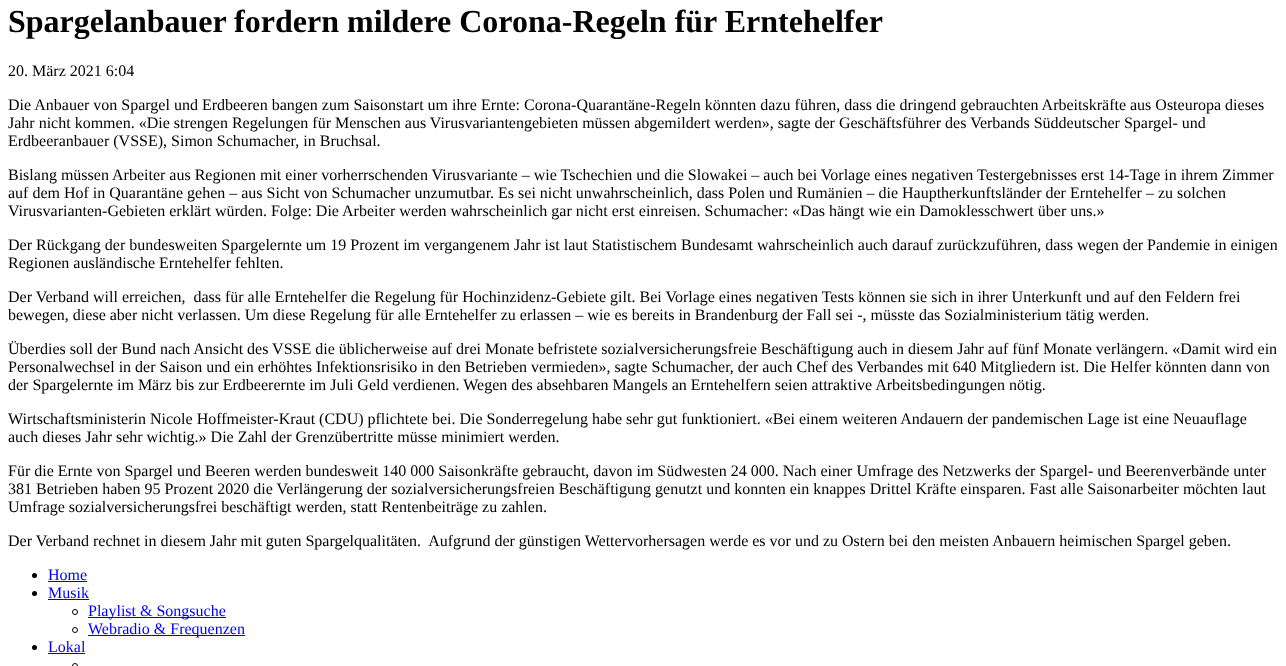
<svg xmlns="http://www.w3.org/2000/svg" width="1286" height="666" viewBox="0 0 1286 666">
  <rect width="100%" height="100%" fill="rgb(255,255,255)"/>
  <text x="8" y="32" font-family="Liberation Serif" font-size="32" font-weight="bold" fill="rgb(0,0,0)">Spargelanbauer fordern mildere Corona-Regeln für Erntehelfer</text>
  <g font-family="Liberation Serif" font-size="16" fill="rgb(0,0,0)">
    <text x="8" y="76">20. März 2021 6:04</text>
    <text>
      <tspan x="8" y="110">Die Anbauer von Spargel und Erdbeeren bangen zum Saisonstart um ihre Ernte: Corona-Quarantäne-Regeln könnten dazu führen, dass die dringend gebrauchten Arbeitskräfte aus Osteuropa dieses</tspan>
      <tspan x="8" y="128">Jahr nicht kommen. «Die strengen Regelungen für Menschen aus Virusvariantengebieten müssen abgemildert werden», sagte der Geschäftsführer des Verbands Süddeutscher Spargel- und</tspan>
      <tspan x="8" y="146">Erdbeeranbauer (VSSE), Simon Schumacher, in Bruchsal.</tspan>
    </text>
    <text>
      <tspan x="8" y="180">Bislang müssen Arbeiter aus Regionen mit einer vorherrschenden Virusvariante – wie Tschechien und die Slowakei – auch bei Vorlage eines negativen Testergebnisses erst 14-Tage in ihrem Zimmer</tspan>
      <tspan x="8" y="198">auf dem Hof in Quarantäne gehen – aus Sicht von Schumacher unzumutbar. Es sei nicht unwahrscheinlich, dass Polen und Rumänien – die Hauptherkunftsländer der Erntehelfer – zu solchen</tspan>
      <tspan x="8" y="216">Virusvarianten-Gebieten erklärt würden. Folge: Die Arbeiter werden wahrscheinlich gar nicht erst einreisen. Schumacher: «Das hängt wie ein Damoklesschwert über uns.»</tspan>
    </text>
    <text>
      <tspan x="8" y="250">Der Rückgang der bundesweiten Spargelernte um 19 Prozent im vergangenem Jahr ist laut Statistischem Bundesamt wahrscheinlich auch darauf zurückzuführen, dass wegen der Pandemie in einigen</tspan>
      <tspan x="8" y="268">Regionen ausländische Erntehelfer fehlten.</tspan>
    </text>
    <text xml:space="preserve"><tspan x="8" y="302">Der Verband will erreichen,  dass für alle Erntehelfer die Regelung für Hochinzidenz-Gebiete gilt. Bei Vorlage eines negativen Tests können sie sich in ihrer Unterkunft und auf den Feldern frei</tspan><tspan x="8" y="320">bewegen, diese aber nicht verlassen. Um diese Regelung für alle Erntehelfer zu erlassen – wie es bereits in Brandenburg der Fall sei -, müsste das Sozialministerium tätig werden.</tspan></text>
    <text>
      <tspan x="8" y="354">Überdies soll der Bund nach Ansicht des VSSE die üblicherweise auf drei Monate befristete sozialversicherungsfreie Beschäftigung auch in diesem Jahr auf fünf Monate verlängern. «Damit wird ein</tspan>
      <tspan x="8" y="372">Personalwechsel in der Saison und ein erhöhtes Infektionsrisiko in den Betrieben vermieden», sagte Schumacher, der auch Chef des Verbandes mit 640 Mitgliedern ist. Die Helfer könnten dann von</tspan>
      <tspan x="8" y="390">der Spargelernte im März bis zur Erdbeerernte im Juli Geld verdienen. Wegen des absehbaren Mangels an Erntehelfern seien attraktive Arbeitsbedingungen nötig.</tspan>
    </text>
    <text>
      <tspan x="8" y="424">Wirtschaftsministerin Nicole Hoffmeister-Kraut (CDU) pflichtete bei. Die Sonderregelung habe sehr gut funktioniert. «Bei einem weiteren Andauern der pandemischen Lage ist eine Neuauflage</tspan>
      <tspan x="8" y="442">auch dieses Jahr sehr wichtig.» Die Zahl der Grenzübertritte müsse minimiert werden.</tspan>
    </text>
    <text>
      <tspan x="8" y="476">Für die Ernte von Spargel und Beeren werden bundesweit 140 000 Saisonkräfte gebraucht, davon im Südwesten 24 000. Nach einer Umfrage des Netzwerks der Spargel- und Beerenverbände unter</tspan>
      <tspan x="8" y="494">381 Betrieben haben 95 Prozent 2020 die Verlängerung der sozialversicherungsfreien Beschäftigung genutzt und konnten ein knappes Drittel Kräfte einsparen. Fast alle Saisonarbeiter möchten laut</tspan>
      <tspan x="8" y="512">Umfrage sozialversicherungsfrei beschäftigt werden, statt Rentenbeiträge zu zahlen.</tspan>
    </text>
    <text x="8" y="546" xml:space="preserve">Der Verband rechnet in diesem Jahr mit guten Spargelqualitäten.  Aufgrund der günstigen Wettervorhersagen werde es vor und zu Ostern bei den meisten Anbauern heimischen Spargel geben.</text>
  </g>
  <circle cx="34.5" cy="575.5" r="2.5" fill="rgb(0,0,0)"/>
  <text x="48" y="580" font-family="Liberation Serif" font-size="16" fill="rgb(0,0,238)">Home</text>
  <rect x="48" y="581" width="39" height="1" fill="rgb(0,0,238)"/>
  <circle cx="34.5" cy="593.5" r="2.5" fill="rgb(0,0,0)"/>
  <text x="48" y="598" font-family="Liberation Serif" font-size="16" fill="rgb(0,0,238)">Musik</text>
  <rect x="48" y="599" width="41" height="1" fill="rgb(0,0,238)"/>
  <circle cx="75" cy="612" r="2.5" fill="none" stroke="rgb(0,0,0)"/>
  <rect x="88" y="617" width="138" height="1" fill="rgb(0,0,238)"/>
  <text x="88" y="616" font-family="Liberation Serif" font-size="16" fill="rgb(0,0,238)">Playlist &amp; Songsuche</text>
  <circle cx="75" cy="630" r="2.5" fill="none" stroke="rgb(0,0,0)"/>
  <rect x="88" y="635" width="157" height="1" fill="rgb(0,0,238)"/>
  <text x="88" y="634" font-family="Liberation Serif" font-size="16" fill="rgb(0,0,238)">Webradio &amp; Frequenzen</text>
  <circle cx="34.5" cy="647.5" r="2.5" fill="rgb(0,0,0)"/>
  <text x="48" y="652" font-family="Liberation Serif" font-size="16" fill="rgb(0,0,238)">Lokal</text>
  <rect x="48" y="653" width="37" height="1" fill="rgb(0,0,238)"/>
  <circle cx="75" cy="666" r="2.5" fill="none" stroke="rgb(0,0,0)"/>
</svg>
